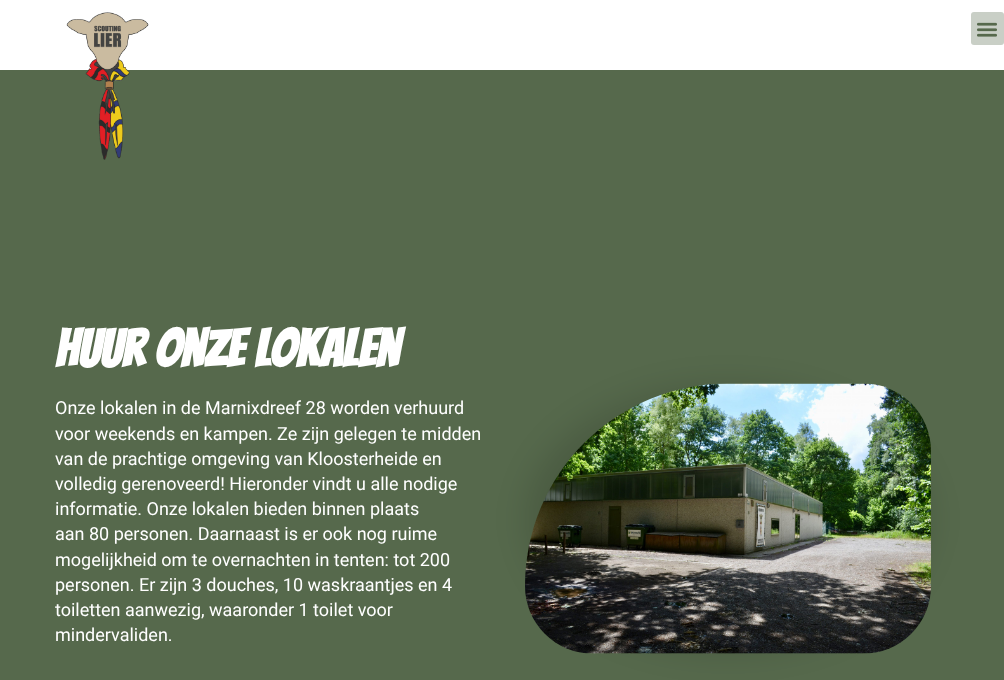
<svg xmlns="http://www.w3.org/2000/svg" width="1004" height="680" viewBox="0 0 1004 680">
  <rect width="100%" height="100%" fill="rgb(255,255,255)"/>
  <rect x="0" y="70" width="1004" height="610" fill="rgb(86,105,76)"/>
  <image x="66" y="12" width="83" height="148" href="pic1.png"/>
  <rect x="971" y="12" width="33" height="33" rx="3" fill="rgb(201,207,198)"/>
  <image x="977" y="22" width="20" height="15" href="pic2.png"/>
  <text x="55" y="367" font-family="Bangers" font-size="52" font-weight="bold" fill="rgb(255,255,255)">huur onze lokalen</text>
  <g font-family="Roboto" font-size="18" fill="rgb(255,255,255)">
    <text>
      <tspan x="55" y="414">Onze lokalen in de Marnixdreef 28 worden verhuurd</tspan>
      <tspan x="55" y="440">voor weekends en kampen. Ze zijn gelegen te midden</tspan>
      <tspan x="55" y="465">van de prachtige omgeving van Kloosterheide en</tspan>
      <tspan x="55" y="490">volledig gerenoveerd! Hieronder vindt u alle nodige</tspan>
      <tspan x="55" y="515">informatie. Onze lokalen bieden binnen plaats</tspan>
      <tspan x="55" y="540">aan 80 personen. Daarnaast is er ook nog ruime</tspan>
      <tspan x="55" y="566">mogelijkheid om te overnachten in tenten: tot 200</tspan>
      <tspan x="55" y="591">personen. Er zijn 3 douches, 10 waskraantjes en 4</tspan>
      <tspan x="55" y="616">toiletten aanwezig, waaronder 1 toilet voor</tspan>
      <tspan x="55" y="641">mindervaliden.</tspan>
    </text>
  </g>
  <rect x="525" y="384" width="406" height="270" rx="202" fill="rgba(0,0,0,0.12)" filter="blur(15px)"/>
  <image x="525" y="383" width="406" height="271" href="pic3.png"/>
</svg>
